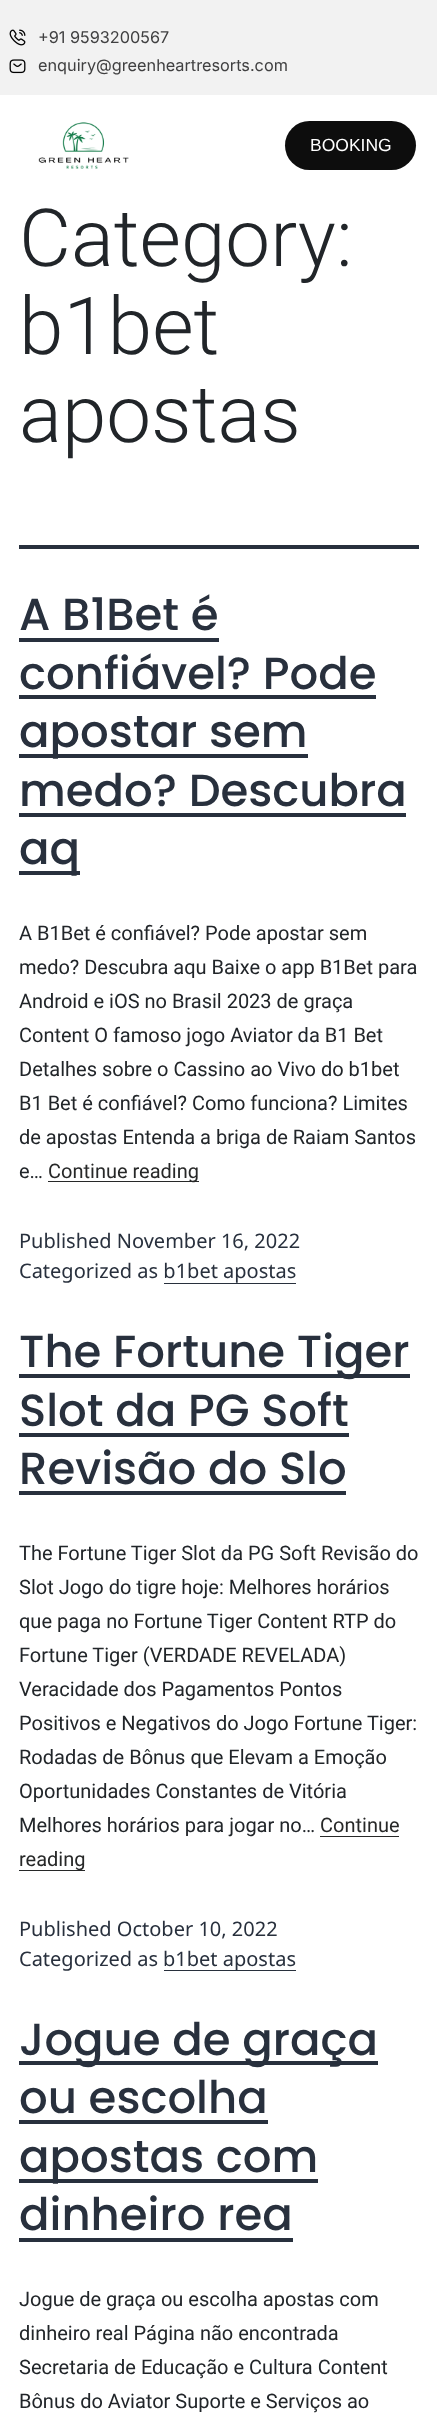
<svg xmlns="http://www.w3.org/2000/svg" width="437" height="2419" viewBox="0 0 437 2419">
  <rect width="100%" height="100%" fill="rgb(255,255,255)"/>
  <rect x="0" y="0" width="437" height="95" fill="rgb(242,242,242)"/>
  <image x="9" y="29" width="17" height="17" href="pic1.png"/>
  <text x="38" y="43" font-family="Inter" font-size="16.25" fill="rgb(64,64,65)">+91 9593200567</text>
  <image x="9" y="59" width="17" height="15" href="pic2.png"/>
  <text x="38" y="71" font-family="Inter" font-size="16.25" fill="rgb(64,64,65)">enquiry@greenheartresorts.com</text>
  <image x="38" y="122" width="91" height="47" href="pic3.png"/>
  <rect x="285" y="121" width="131" height="49" rx="24.5" fill="rgb(13,13,13)"/>
  <text x="310" y="151" font-family="Liberation Sans" font-size="17.5" fill="rgb(255,255,255)">BOOKING</text>
  <rect x="19" y="545" width="400" height="4" fill="rgb(40,48,61)"/>
  <g font-family="Roboto" font-size="80" font-weight="300" fill="rgb(33,37,41)">
    <text>
      <tspan x="19" y="266">Category:</tspan>
      <tspan x="19" y="354">b1bet</tspan>
      <tspan x="19" y="442">apostas</tspan>
    </text>
  </g>
  <text x="19" y="630" font-family="Poppins" font-size="45" font-weight="500" fill="rgb(40,48,61)">A B1Bet é</text>
  <rect x="19" y="638" width="200" height="4" fill="rgb(40,48,61)"/>
  <text x="19" y="689" font-family="Poppins" font-size="45" font-weight="500" fill="rgb(40,48,61)">confiável? Pode</text>
  <rect x="19" y="695" width="357" height="4" fill="rgb(40,48,61)"/>
  <rect x="19" y="754" width="289" height="4" fill="rgb(40,48,61)"/>
  <g font-family="Poppins" font-size="45" font-weight="500" fill="rgb(40,48,61)">
    <text>
      <tspan x="19" y="747">apostar sem</tspan>
      <tspan x="19" y="806">medo? Descubra</tspan>
    </text>
  </g>
  <rect x="19" y="813" width="387" height="4" fill="rgb(40,48,61)"/>
  <rect x="19" y="871" width="61" height="4" fill="rgb(40,48,61)"/>
  <text x="19" y="864" font-family="Poppins" font-size="45" font-weight="500" fill="rgb(40,48,61)">aq</text>
  <g font-family="Roboto" font-size="20" fill="rgb(33,37,41)">
    <text>
      <tspan x="19" y="940">A B1Bet é confiável? Pode apostar sem</tspan>
      <tspan x="19" y="974">medo? Descubra aqu Baixe o app B1Bet para</tspan>
      <tspan x="19" y="1008">Android e iOS no Brasil 2023 de graça</tspan>
      <tspan x="19" y="1042">Content O famoso jogo Aviator da B1 Bet</tspan>
      <tspan x="19" y="1076">Detalhes sobre o Cassino ao Vivo do b1bet</tspan>
      <tspan x="19" y="1110">B1 Bet é confiável? Como funciona? Limites</tspan>
      <tspan x="19" y="1144">de apostas Entenda a briga de Raiam Santos</tspan>
      <tspan x="19" y="1178">e…</tspan>
    </text>
  </g>
  <rect x="48" y="1181" width="151" height="1" fill="rgb(39,40,40)"/>
  <text x="48" y="1178" font-family="Roboto" font-size="20" fill="rgb(39,40,40)">Continue reading</text>
  <g font-family="Noto Sans" font-size="20" fill="rgb(40,48,61)">
    <text>
      <tspan x="19" y="1248">Published November 16, 2022</tspan>
      <tspan x="19" y="1278">Categorized as b1bet apostas</tspan>
    </text>
  </g>
  <rect x="164" y="1283" width="132" height="1" fill="rgb(40,48,61)"/>
  <rect x="19" y="1374" width="391" height="4" fill="rgb(40,48,61)"/>
  <g font-family="Poppins" font-size="45" font-weight="500" fill="rgb(40,48,61)">
    <text>
      <tspan x="19" y="1367">The Fortune Tiger</tspan>
      <tspan x="19" y="1426">Slot da PG Soft</tspan>
    </text>
  </g>
  <rect x="19" y="1433" width="330" height="4" fill="rgb(40,48,61)"/>
  <text x="19" y="1484" font-family="Poppins" font-size="45" font-weight="500" fill="rgb(40,48,61)">Revisão do Slo</text>
  <rect x="19" y="1491" width="327" height="4" fill="rgb(40,48,61)"/>
  <g font-family="Roboto" font-size="20" fill="rgb(33,37,41)">
    <text>
      <tspan x="19" y="1560">The Fortune Tiger Slot da PG Soft Revisão do</tspan>
      <tspan x="19" y="1594">Slot Jogo do tigre hoje: Melhores horários</tspan>
      <tspan x="19" y="1628">que paga no Fortune Tiger Content RTP do</tspan>
      <tspan x="19" y="1662">Fortune Tiger (VERDADE REVELADA)</tspan>
      <tspan x="19" y="1696">Veracidade dos Pagamentos Pontos</tspan>
      <tspan x="19" y="1730">Positivos e Negativos do Jogo Fortune Tiger:</tspan>
      <tspan x="19" y="1764">Rodadas de Bônus que Elevam a Emoção</tspan>
      <tspan x="19" y="1798">Oportunidades Constantes de Vitória</tspan>
      <tspan x="19" y="1832">Melhores horários para jogar no…</tspan>
    </text>
  </g>
  <text x="320" y="1832" font-family="Roboto" font-size="20" fill="rgb(39,40,40)">Continue</text>
  <rect x="320" y="1836" width="79" height="1" fill="rgb(39,40,40)"/>
  <rect x="19" y="1870" width="66" height="1" fill="rgb(39,40,40)"/>
  <text x="19" y="1866" font-family="Roboto" font-size="20" fill="rgb(39,40,40)">reading</text>
  <g font-family="Noto Sans" font-size="20" fill="rgb(40,48,61)">
    <text>
      <tspan x="19" y="1936">Published October 10, 2022</tspan>
      <tspan x="19" y="1966">Categorized as</tspan>
    </text>
  </g>
  <rect x="164" y="1970" width="132" height="1" fill="rgb(40,48,61)"/>
  <text x="163" y="1966" font-family="Noto Sans" font-size="20" fill="rgb(40,48,61)">b1bet apostas</text>
  <rect x="19" y="2061" width="359" height="4" fill="rgb(40,48,61)"/>
  <g font-family="Poppins" font-size="45" font-weight="500" fill="rgb(40,48,61)">
    <text>
      <tspan x="19" y="2055">Jogue de graça</tspan>
      <tspan x="19" y="2113">ou escolha</tspan>
    </text>
  </g>
  <rect x="19" y="2120" width="249" height="4" fill="rgb(40,48,61)"/>
  <rect x="19" y="2179" width="299" height="4" fill="rgb(40,48,61)"/>
  <g font-family="Poppins" font-size="45" font-weight="500" fill="rgb(40,48,61)">
    <text>
      <tspan x="19" y="2172">apostas com</tspan>
      <tspan x="19" y="2230">dinheiro rea</tspan>
    </text>
  </g>
  <rect x="19" y="2238" width="274" height="4" fill="rgb(40,48,61)"/>
  <g font-family="Roboto" font-size="20" fill="rgb(33,37,41)">
    <text>
      <tspan x="19" y="2306">Jogue de graça ou escolha apostas com</tspan>
      <tspan x="19" y="2340">dinheiro real Página não encontrada</tspan>
      <tspan x="19" y="2374">Secretaria de Educação e Cultura Content</tspan>
      <tspan x="19" y="2408">Bônus do Aviator Suporte e Serviços ao</tspan>
    </text>
  </g>
</svg>
